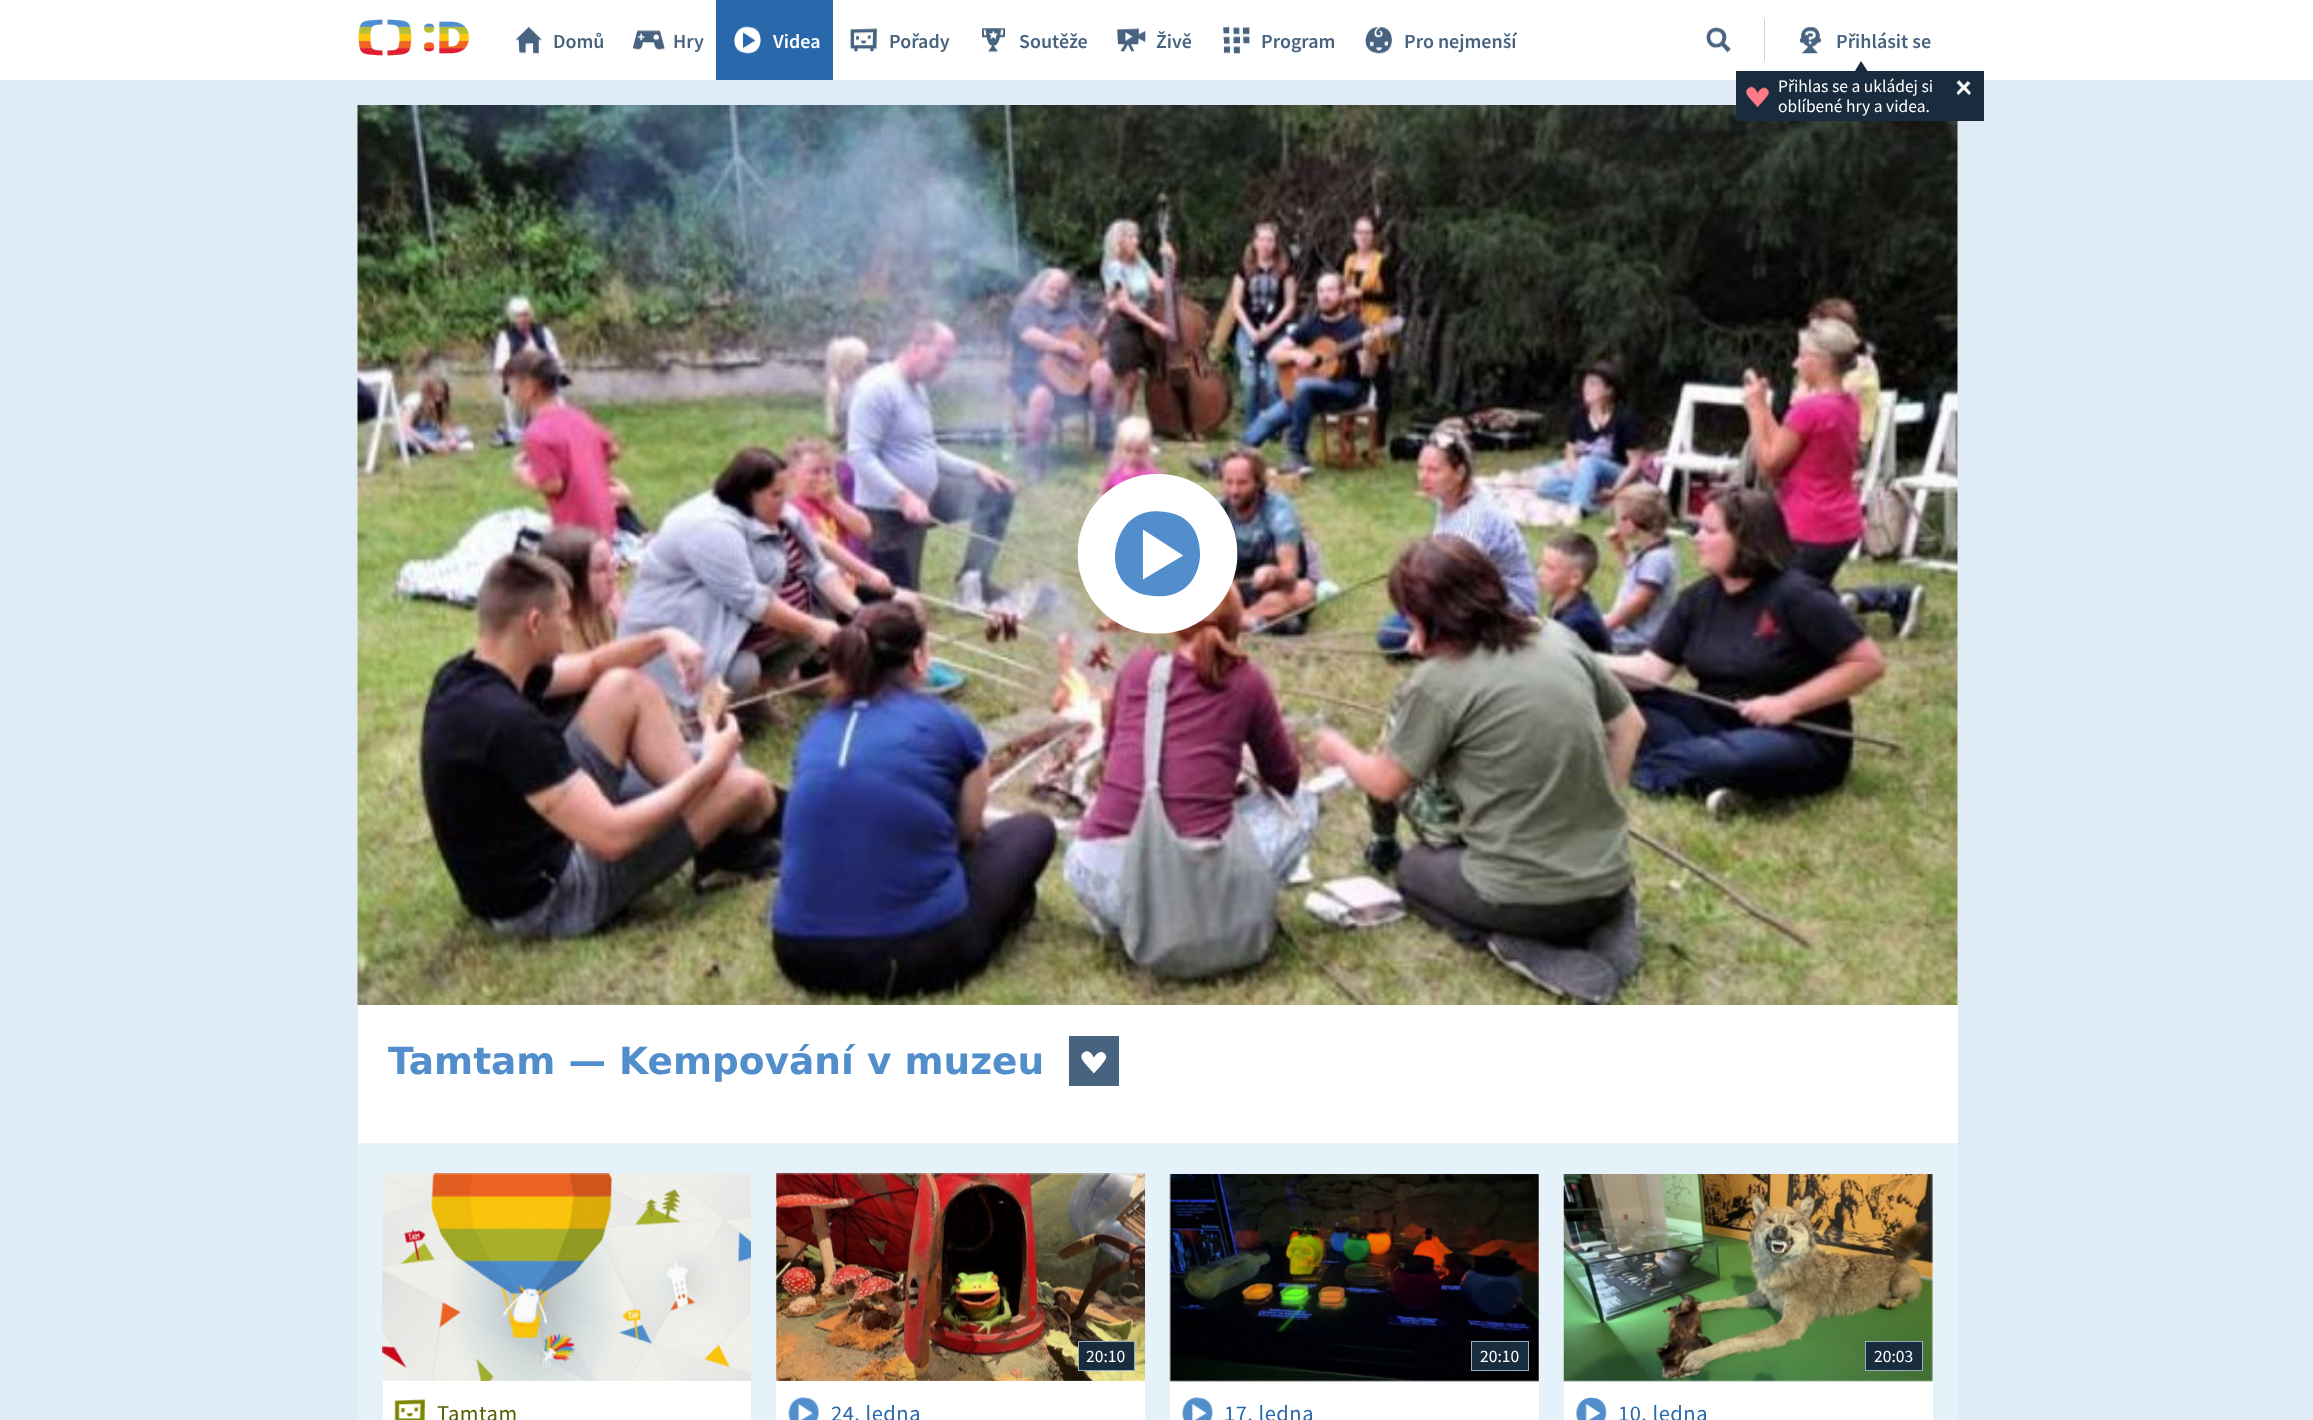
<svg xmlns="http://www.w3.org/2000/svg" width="2313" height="1420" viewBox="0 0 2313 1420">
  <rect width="100%" height="100%" fill="rgb(224,236,245)"/>
  <rect x="0" y="0" width="2313" height="80" fill="rgb(255,255,255)"/>
  <image x="358" y="19" width="111" height="37" href="pic1.png"/>
  <image x="515" y="26" width="27" height="28" href="pic2.png"/>
  <text x="553" y="48" font-family="Source Sans Pro" font-size="20" font-weight="600" fill="rgb(72,99,128)">Domů</text>
  <image x="632" y="30" width="33" height="21" href="pic3.png"/>
  <text x="673" y="48" font-family="Source Sans Pro" font-size="20" font-weight="600" fill="rgb(72,99,128)">Hry</text>
  <rect x="716" y="0" width="117" height="80" fill="rgb(41,105,171)"/>
  <image x="734" y="26" width="27" height="28" href="pic4.png"/>
  <text x="773" y="48" font-family="Source Sans Pro" font-size="20" font-weight="600" fill="rgb(255,255,255)">Videa</text>
  <image x="850" y="28" width="27" height="24" href="pic5.png"/>
  <text x="889" y="48" font-family="Source Sans Pro" font-size="20" font-weight="600" fill="rgb(72,99,128)">Pořady</text>
  <image x="982" y="28" width="23" height="25" href="pic6.png"/>
  <text x="1019" y="48" font-family="Source Sans Pro" font-size="20" font-weight="600" fill="rgb(72,99,128)">Soutěže</text>
  <image x="1117" y="28" width="29" height="24" href="pic7.png"/>
  <text x="1156" y="48" font-family="Source Sans Pro" font-size="20" font-weight="600" fill="rgb(72,99,128)">Živě</text>
  <image x="1223" y="26" width="27" height="28" href="pic8.png"/>
  <text x="1261" y="48" font-family="Source Sans Pro" font-size="20" font-weight="600" fill="rgb(72,99,128)">Program</text>
  <image x="1365" y="26" width="27" height="28" href="pic9.png"/>
  <text x="1404" y="48" font-family="Source Sans Pro" font-size="20" font-weight="600" fill="rgb(72,99,128)">Pro nejmenší</text>
  <image x="1706" y="27" width="25" height="26" href="pic10.png"/>
  <rect x="1764" y="19" width="1" height="42" fill="rgb(195,215,230)"/>
  <image x="1799" y="26" width="23" height="28" href="pic11.png"/>
  <text x="1836" y="48" font-family="Source Sans Pro" font-size="20" font-weight="600" fill="rgb(72,99,128)">Přihlásit se</text>
  <image x="357" y="105" width="1601" height="900" href="pic14.png"/>
  <rect x="1736" y="71" width="248" height="50" fill="rgb(25,44,61)"/>
  <path d="M1867.5 71H1855L1861 61Z" fill="rgb(25,44,61)"/>
  <image x="1746" y="86" width="23" height="22" href="pic12.png"/>
  <g font-family="Source Sans Pro" font-size="17.5" fill="rgb(255,255,255)">
    <text>
      <tspan x="1778" y="92">Přihlas se a ukládej si</tspan>
      <tspan x="1778" y="112">oblíbené hry a videa.</tspan>
    </text>
  </g>
  <image x="1956" y="80" width="15" height="16" href="pic13.png"/>
  <image x="1077" y="473" width="161" height="161" href="pic15.png"/>
  <rect x="358" y="1005" width="1600" height="138" fill="rgb(255,255,255)"/>
  <text x="388" y="1074" font-family="DejaVu Sans" font-size="37.5" font-weight="bold" fill="rgb(81,142,203)">Tamtam — Kempování v muzeu</text>
  <rect x="1069" y="1036" width="50" height="50" fill="rgb(72,99,128)"/>
  <image x="1081" y="1051" width="26" height="23" href="pic16.png"/>
  <rect x="358" y="1143" width="1600" height="277" fill="rgb(230,242,250)"/>
  <image x="382" y="1173" width="369" height="208" href="pic17.png"/>
  <rect x="383" y="1381" width="368" height="39" fill="rgb(255,255,255)"/>
  <image x="394" y="1399" width="32" height="21" href="pic18.png"/>
  <text x="437" y="1421" font-family="Source Sans Pro" font-size="22.5" letter-spacing="0.5" fill="rgb(87,93,0)">Tamtam</text>
  <rect x="776" y="1174" width="369" height="246" fill="rgb(255,255,255)"/>
  <image x="776" y="1173" width="369" height="208" href="pic19.png"/>
  <rect x="1078.5" y="1341.5" width="56" height="29" fill="rgb(25,44,61)" stroke="rgb(145,176,196)"/>
  <text x="1086" y="1362" font-family="Source Sans Pro" font-size="17.5" fill="rgb(255,255,255)">20:10</text>
  <image x="788" y="1397" width="32" height="23" href="pic20.png"/>
  <text x="831" y="1421" font-family="Source Sans Pro" font-size="22.5" letter-spacing="0.5" fill="rgb(41,105,171)">24. ledna</text>
  <rect x="1170" y="1174" width="369" height="246" fill="rgb(255,255,255)"/>
  <image x="1169" y="1174" width="370" height="208" href="pic21.png"/>
  <rect x="1471.5" y="1341.5" width="57" height="29" fill="rgb(25,44,61)" stroke="rgb(145,176,196)"/>
  <text x="1480" y="1362" font-family="Source Sans Pro" font-size="17.5" fill="rgb(255,255,255)">20:10</text>
  <image x="1182" y="1397" width="31" height="23" href="pic22.png"/>
  <text x="1224" y="1421" font-family="Source Sans Pro" font-size="22.5" letter-spacing="0.5" fill="rgb(41,105,171)">17. ledna</text>
  <rect x="1564" y="1174" width="369" height="246" fill="rgb(255,255,255)"/>
  <image x="1563" y="1174" width="370" height="208" href="pic23.png"/>
  <rect x="1865.5" y="1341.5" width="57" height="29" fill="rgb(25,44,61)" stroke="rgb(145,176,196)"/>
  <text x="1874" y="1362" font-family="Source Sans Pro" font-size="17.5" fill="rgb(255,255,255)">20:03</text>
  <image x="1576" y="1397" width="31" height="23" href="pic24.png"/>
  <text x="1618" y="1421" font-family="Source Sans Pro" font-size="22.5" letter-spacing="0.5" fill="rgb(41,105,171)">10. ledna</text>
</svg>
